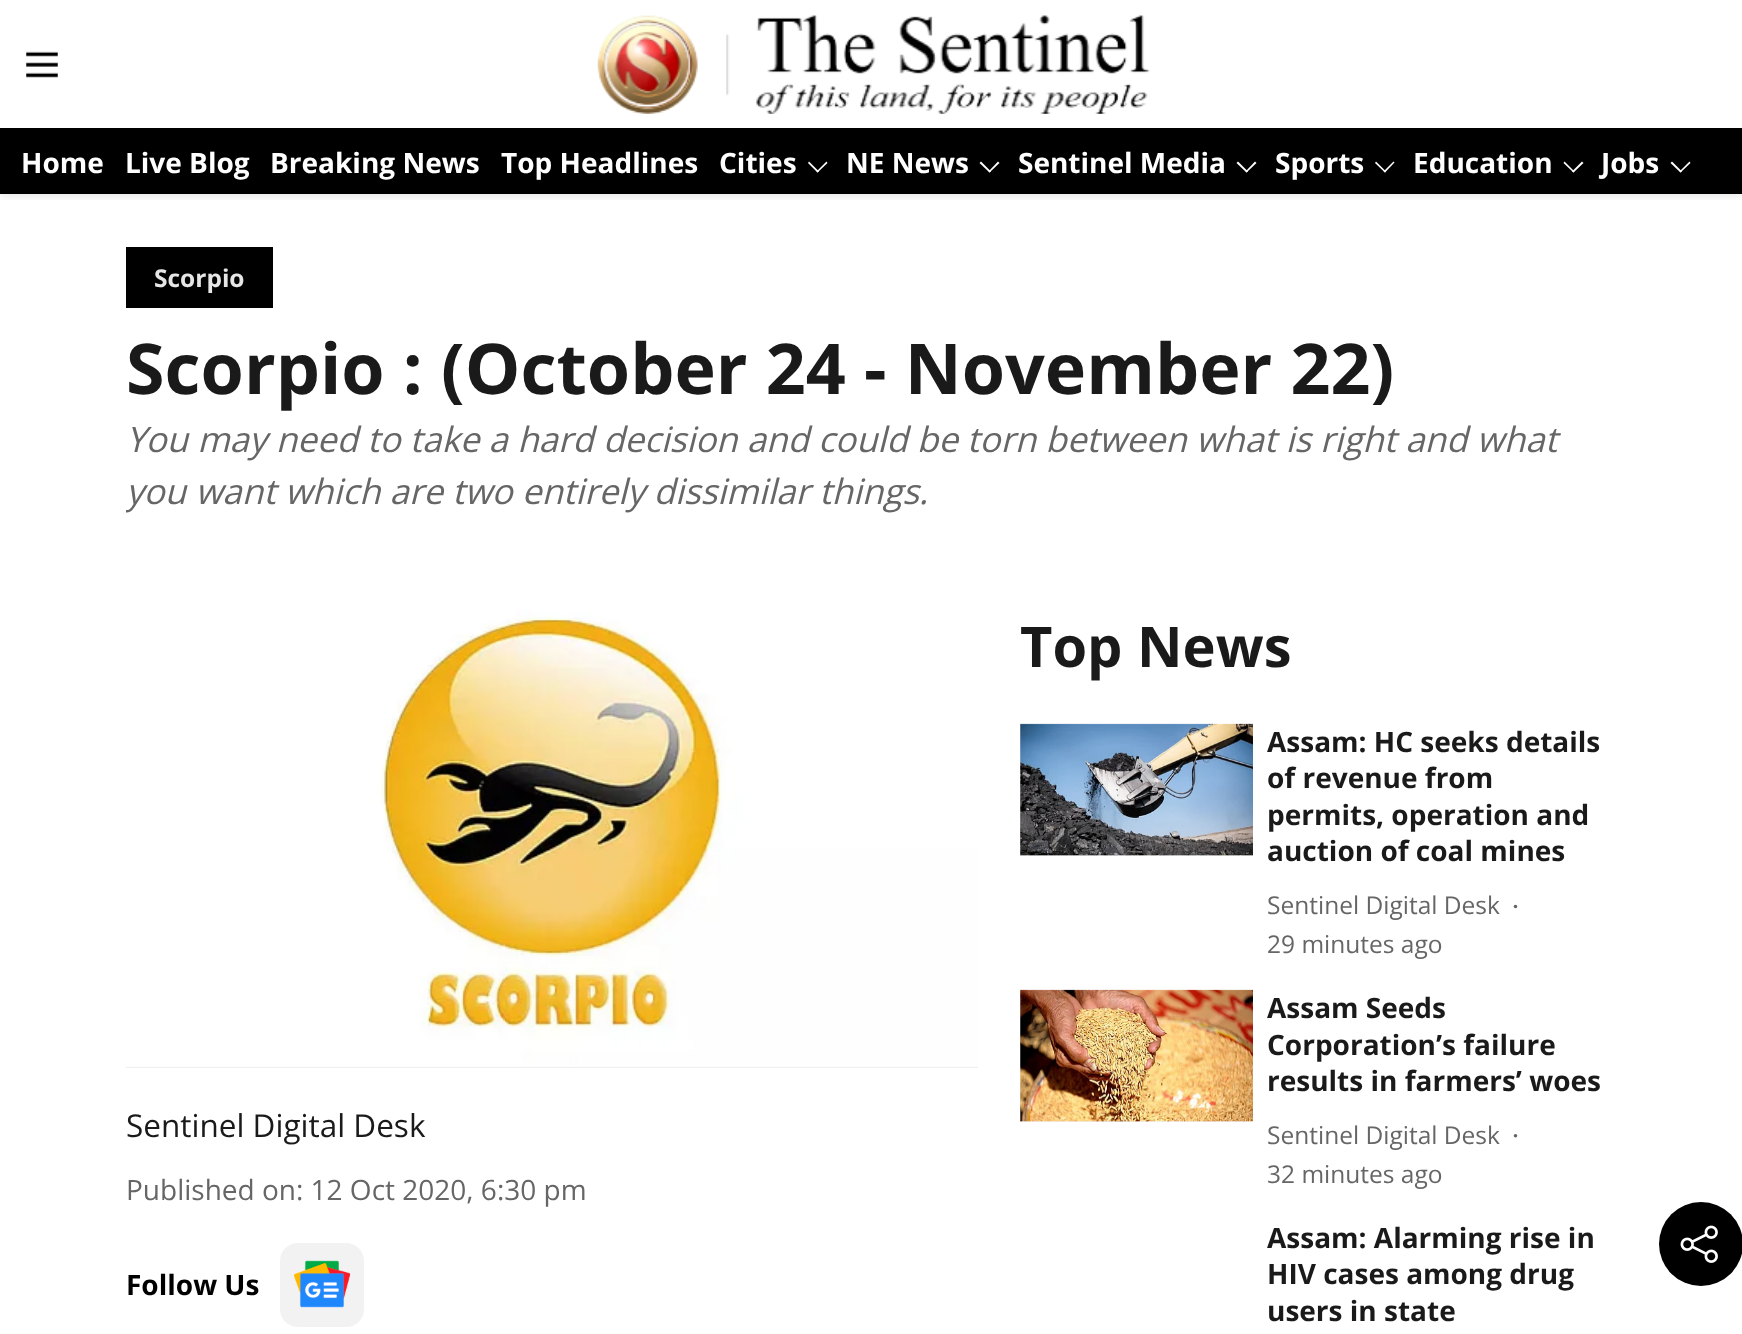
<svg xmlns="http://www.w3.org/2000/svg" width="1742" height="1334" viewBox="0 0 1742 1334">
  <defs>
    <clipPath id="clip1"><rect x="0" y="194" width="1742" height="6"/></clipPath>
    <clipPath id="clip2"><rect x="126" y="413" width="1491" height="105"/></clipPath>
  </defs>
  <rect width="100%" height="100%" fill="rgb(255,255,255)"/>
  <g clip-path="url(#clip1)">
    <rect x="0" y="2" width="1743" height="194" fill="rgba(0,0,0,0.1)" filter="blur(5px)"/>
  </g>
  <image x="26" y="51" width="32" height="27" href="pic1.png"/>
  <image x="597" y="15" width="553" height="99" href="pic2.png"/>
  <rect x="0" y="128" width="1742" height="66" fill="rgb(0,0,0)"/>
  <g font-family="Open Sans" font-size="28" font-weight="bold" fill="rgb(255,255,255)">
    <text x="21" y="173">Home</text>
    <text x="125" y="173">Live Blog</text>
    <text x="270" y="173">Breaking News</text>
    <text x="501" y="173">Top Headlines</text>
    <text x="719" y="173">Cities</text>
  </g>
  <path d="M826.5 161.5L827.5 163L817.5 172.5L816.5 171.5Z" fill="rgb(255,255,255)"/>
  <path d="M809 161.5L819 171.5L817.5 172.5L808 163Z" fill="rgb(255,255,255)"/>
  <text x="846" y="173" font-family="Open Sans" font-size="28" font-weight="bold" fill="rgb(255,255,255)">NE News</text>
  <path d="M998 161.5L999.5 163L989.5 172.5L988.5 171.5Z" fill="rgb(255,255,255)"/>
  <path d="M981 161.5L991 171.5L989.5 172.5L979.5 163Z" fill="rgb(255,255,255)"/>
  <text x="1018" y="173" font-family="Open Sans" font-size="28" font-weight="bold" fill="rgb(255,255,255)">Sentinel Media</text>
  <path d="M1255 161.5L1256.5 163L1246.5 172.5L1245.5 171.5Z" fill="rgb(255,255,255)"/>
  <path d="M1238 161.5L1248 171.5L1246.5 172.5L1236.5 163Z" fill="rgb(255,255,255)"/>
  <text x="1275" y="173" font-family="Open Sans" font-size="28" font-weight="bold" fill="rgb(255,255,255)">Sports</text>
  <path d="M1393.5 161.5L1394.5 162.5L1385 172.5L1383.5 171.5Z" fill="rgb(255,255,255)"/>
  <path d="M1376 161.5L1386 171.5L1385 172.5L1375 163Z" fill="rgb(255,255,255)"/>
  <text x="1413" y="173" font-family="Open Sans" font-size="28" font-weight="bold" fill="rgb(255,255,255)">Education</text>
  <path d="M1582 161.5L1583.5 163L1573.5 172.5L1572 171.5Z" fill="rgb(255,255,255)"/>
  <path d="M1564.5 161.5L1574.5 171.5L1573.5 172.5L1563.5 163Z" fill="rgb(255,255,255)"/>
  <text x="1601" y="173" font-family="Open Sans" font-size="28" font-weight="bold" fill="rgb(255,255,255)">Jobs</text>
  <path d="M1689.5 161.5L1690.5 163L1680.5 172.5L1679.5 171.5Z" fill="rgb(255,255,255)"/>
  <path d="M1672 161.5L1682 171.5L1680.5 172.5L1670.5 163Z" fill="rgb(255,255,255)"/>
  <rect x="126" y="247" width="147" height="61" fill="rgb(0,0,0)"/>
  <text x="154" y="287" font-family="Open Sans" font-size="24.5" font-weight="bold" fill="rgb(230,230,230)">Scorpio</text>
  <text x="126" y="394" font-family="Open Sans" font-size="70" font-weight="bold" fill="rgb(26,26,26)">Scorpio : (October 24 - November 22)</text>
  <text x="126" y="452" font-family="Open Sans" font-size="35" font-style="italic" fill="rgb(102,102,102)">You may need to take a hard decision and could be torn between what is right and what</text>
  <g clip-path="url(#clip2)">
    <text x="126" y="504" font-family="Open Sans" font-size="35" font-style="italic" fill="rgb(102,102,102)">you want which are two entirely dissimilar things.</text>
  </g>
  <rect x="126" y="588" width="852" height="480" fill="rgb(240,240,240)"/>
  <image x="126" y="588" width="852" height="479" href="pic3.png"/>
  <text x="1020" y="667" font-family="Open Sans" font-size="56" font-weight="bold" fill="rgb(26,26,26)">Top News</text>
  <rect x="1020" y="725" width="233" height="131" fill="rgb(240,240,240)"/>
  <image x="1020" y="723" width="233" height="133" href="pic4.png"/>
  <g font-family="Open Sans" font-size="28" font-weight="bold" fill="rgb(26,26,26)">
    <text>
      <tspan x="1267" y="752">Assam: HC seeks details</tspan>
      <tspan x="1267" y="788">of revenue from</tspan>
      <tspan x="1267" y="825">permits, operation and</tspan>
      <tspan x="1267" y="861">auction of coal mines</tspan>
    </text>
  </g>
  <text x="1267" y="914" font-family="Open Sans" font-size="24.5" fill="rgb(102,102,102)">Sentinel Digital Desk</text>
  <circle cx="1515.5" cy="906.5" r="1.8" fill="rgb(102,102,102)"/>
  <text x="1267" y="953" font-family="Open Sans" font-size="24.5" fill="rgb(102,102,102)">29 minutes ago</text>
  <rect x="1020" y="991" width="233" height="131" fill="rgb(240,240,240)"/>
  <image x="1020" y="989" width="233" height="133" href="pic5.png"/>
  <g font-family="Open Sans" font-size="28" font-weight="bold" fill="rgb(26,26,26)">
    <text>
      <tspan x="1267" y="1018">Assam Seeds</tspan>
      <tspan x="1267" y="1055">Corporation’s failure</tspan>
      <tspan x="1267" y="1091">results in farmers’ woes</tspan>
    </text>
  </g>
  <text x="1267" y="1144" font-family="Open Sans" font-size="24.5" fill="rgb(102,102,102)">Sentinel Digital Desk</text>
  <circle cx="1515.5" cy="1135.8" r="1.8" fill="rgb(102,102,102)"/>
  <text x="1267" y="1183" font-family="Open Sans" font-size="24.5" fill="rgb(102,102,102)">32 minutes ago</text>
  <g font-family="Open Sans" font-size="28" font-weight="bold" fill="rgb(26,26,26)">
    <text>
      <tspan x="1267" y="1248">Assam: Alarming rise in</tspan>
      <tspan x="1267" y="1284">HIV cases among drug</tspan>
      <tspan x="1267" y="1321">users in state</tspan>
    </text>
  </g>
  <text x="126" y="1137" font-family="Open Sans" font-size="31.5" fill="rgb(26,26,26)">Sentinel Digital Desk</text>
  <text x="126" y="1200" font-family="Open Sans" font-size="28" fill="rgb(102,102,102)">Published on: 12 Oct 2020, 6:30 pm</text>
  <text x="126" y="1295" font-family="Open Sans" font-size="28" font-weight="bold" fill="rgb(0,0,0)">Follow Us</text>
  <rect x="280" y="1243" width="84" height="84" rx="18" fill="rgb(242,242,242)"/>
  <image x="294" y="1260" width="56" height="48" href="pic6.png"/>
  <circle cx="1701" cy="1244" r="42" fill="rgb(0,0,0)"/>
  <image x="1680" y="1225" width="38" height="38" href="pic7.png"/>
</svg>
